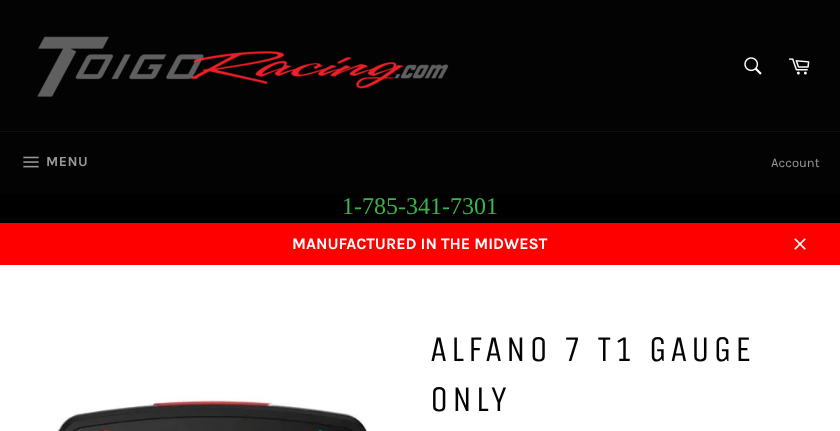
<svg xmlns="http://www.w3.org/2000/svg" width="840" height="431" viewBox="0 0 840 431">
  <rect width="100%" height="100%" fill="rgb(255,255,255)"/>
  <rect x="0" y="0" width="840" height="131" fill="rgb(3,3,3)"/>
  <image x="37" y="36" width="412" height="61" href="pic1.png"/>
  <image x="744" y="57" width="18" height="18" href="pic2.png"/>
  <image x="788" y="58" width="22" height="17" href="pic3.png"/>
  <rect x="0" y="132" width="840" height="62" fill="rgb(3,3,3)"/>
  <rect x="0" y="131" width="840" height="1" fill="rgb(16,16,16)"/>
  <image x="23" y="156" width="16" height="12" href="pic4.png"/>
  <text x="46" y="166" font-family="Karla" font-size="14" font-weight="bold" letter-spacing="0.5" fill="rgb(154,154,154)">MENU</text>
  <text x="771" y="167" font-family="Karla" font-size="13" fill="rgb(154,154,154)">Account</text>
  <rect x="0" y="194" width="840" height="29" fill="rgb(0,0,0)"/>
  <text x="342" y="214" font-family="Liberation Serif" font-size="24" fill="rgb(56,180,73)">1-785-341-7301</text>
  <rect x="0" y="223" width="840" height="42" fill="rgb(255,0,0)"/>
  <text x="292" y="249" font-family="Karla" font-size="16" font-weight="bold" fill="rgb(255,255,255)">MANUFACTURED IN THE MIDWEST</text>
  <image x="794" y="238" width="12" height="12" href="pic5.png"/>
  <image x="56" y="397" width="312" height="34" href="pic6.png"/>
  <g font-family="Unica One" font-size="36" letter-spacing="3.6" fill="rgb(3,3,3)">
    <text>
      <tspan x="430" y="361">ALFANO 7 T1 GAUGE</tspan>
      <tspan x="430" y="411">ONLY</tspan>
    </text>
  </g>
</svg>
